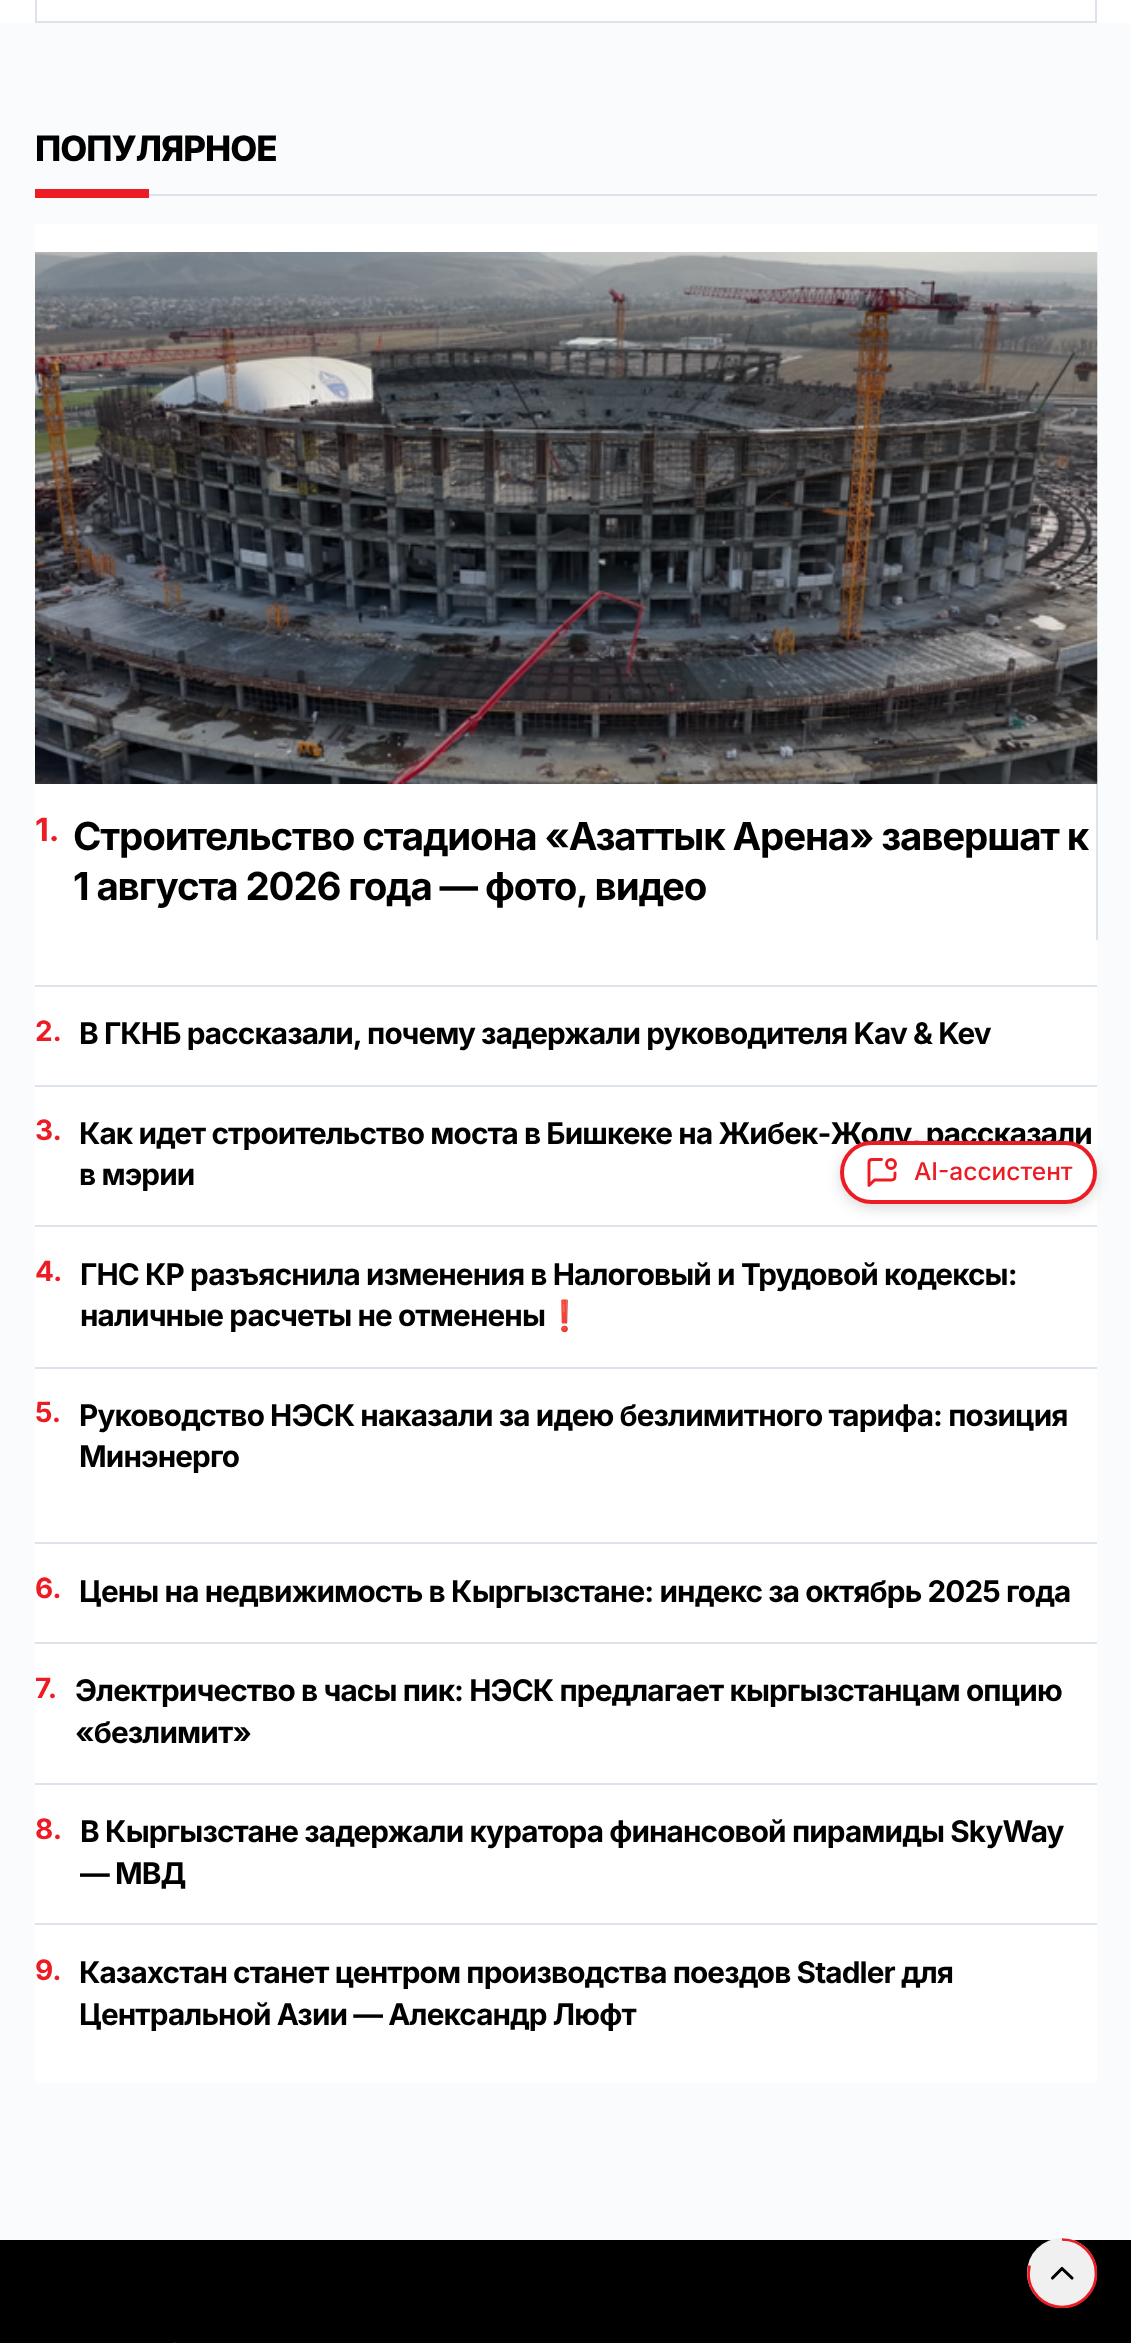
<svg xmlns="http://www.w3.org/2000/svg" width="1131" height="2343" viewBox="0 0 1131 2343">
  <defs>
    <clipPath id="clip1"><rect x="1027" y="2238" width="70" height="70"/></clipPath>
  </defs>
  <rect width="100%" height="100%" fill="rgb(255,255,255)"/>
  <rect x="36" y="-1" width="1060" height="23" fill="none" stroke="rgb(220,227,234)" stroke-width="2"/>
  <rect x="0" y="23" width="1131" height="2217" fill="rgb(249,251,252)"/>
  <rect x="149" y="194" width="948" height="2" fill="rgb(220,227,234)"/>
  <text x="35" y="161" font-family="Inter" font-size="35" font-weight="800" letter-spacing="-1" fill="rgb(0,0,0)">ПОПУЛЯРНОЕ</text>
  <rect x="35" y="189" width="114" height="9" fill="rgb(237,28,36)"/>
  <rect x="35" y="224" width="1062" height="1859" fill="rgb(255,255,255)"/>
  <image x="35" y="252" width="1063" height="532" href="pic1.png"/>
  <rect x="1096" y="784" width="2" height="156" fill="rgb(220,227,234)"/>
  <text x="35" y="841" font-family="Inter" font-size="32" font-weight="bold" fill="rgb(237,28,36)">1.</text>
  <g font-family="Inter" font-size="38.5" font-weight="bold" letter-spacing="-1.15" fill="rgb(0,0,0)">
    <text>
      <tspan x="73" y="850">Строительство стадиона «Азаттык Арена» завершат к</tspan>
      <tspan x="73" y="900">1 августа 2026 года — фото, видео</tspan>
    </text>
  </g>
  <rect x="35" y="985" width="1062" height="2" fill="rgb(220,227,234)"/>
  <rect x="35" y="1085" width="1062" height="2" fill="rgb(220,227,234)"/>
  <text x="35" y="1041" font-family="Inter" font-size="28" font-weight="bold" fill="rgb(237,28,36)">2.</text>
  <text x="79" y="1044" font-family="Inter" font-size="29.75" font-weight="bold" letter-spacing="-0.9" fill="rgb(0,0,0)">В ГКНБ рассказали, почему задержали руководителя Kav &amp; Kev</text>
  <rect x="35" y="1225" width="1062" height="2" fill="rgb(220,227,234)"/>
  <text x="35" y="1140" font-family="Inter" font-size="28" font-weight="bold" fill="rgb(237,28,36)">3.</text>
  <g font-family="Inter" font-size="29.75" font-weight="bold" letter-spacing="-0.9" fill="rgb(0,0,0)">
    <text>
      <tspan x="79" y="1144">Как идет строительство моста в Бишкеке на Жибек-Жолу, рассказали</tspan>
      <tspan x="79" y="1185">в мэрии</tspan>
    </text>
  </g>
  <rect x="35" y="1367" width="1062" height="2" fill="rgb(220,227,234)"/>
  <text x="35" y="1281" font-family="Inter" font-size="28" font-weight="bold" fill="rgb(237,28,36)">4.</text>
  <g font-family="Inter" font-size="29.75" font-weight="bold" letter-spacing="-0.9" fill="rgb(0,0,0)">
    <text>
      <tspan x="80" y="1285">ГНС КР разъяснила изменения в Налоговый и Трудовой кодексы:</tspan>
      <tspan x="80" y="1326">наличные расчеты не отменены</tspan>
    </text>
  </g>
  <text x="546" y="1326" font-family="Noto Color Emoji" font-size="29.75" font-weight="bold" letter-spacing="-0.9" fill="rgb(0,0,0)">❗️</text>
  <text x="35" y="1422" font-family="Inter" font-size="28" font-weight="bold" fill="rgb(237,28,36)">5.</text>
  <g font-family="Inter" font-size="29.75" font-weight="bold" letter-spacing="-0.9" fill="rgb(0,0,0)">
    <text>
      <tspan x="79" y="1426">Руководство НЭСК наказали за идею безлимитного тарифа: позиция</tspan>
      <tspan x="79" y="1467">Минэнерго</tspan>
    </text>
  </g>
  <rect x="35" y="1542" width="1062" height="2" fill="rgb(220,227,234)"/>
  <rect x="35" y="1642" width="1062" height="2" fill="rgb(220,227,234)"/>
  <text x="35" y="1598" font-family="Inter" font-size="28" font-weight="bold" fill="rgb(237,28,36)">6.</text>
  <text x="79" y="1602" font-family="Inter" font-size="29.75" font-weight="bold" letter-spacing="-0.9" fill="rgb(0,0,0)">Цены на недвижимость в Кыргызстане: индекс за октябрь 2025 года</text>
  <rect x="35" y="1783" width="1062" height="2" fill="rgb(220,227,234)"/>
  <text x="35" y="1698" font-family="Inter" font-size="28" font-weight="bold" fill="rgb(237,28,36)">7.</text>
  <g font-family="Inter" font-size="29.75" font-weight="bold" letter-spacing="-0.9" fill="rgb(0,0,0)">
    <text>
      <tspan x="75" y="1701">Электричество в часы пик: НЭСК предлагает кыргызстанцам опцию</tspan>
      <tspan x="75" y="1743">«безлимит»</tspan>
    </text>
  </g>
  <rect x="35" y="1923" width="1062" height="2" fill="rgb(220,227,234)"/>
  <text x="35" y="1839" font-family="Inter" font-size="28" font-weight="bold" fill="rgb(237,28,36)">8.</text>
  <g font-family="Inter" font-size="29.75" font-weight="bold" letter-spacing="-0.9" fill="rgb(0,0,0)">
    <text>
      <tspan x="80" y="1842">В Кыргызстане задержали куратора финансовой пирамиды SkyWay</tspan>
      <tspan x="80" y="1884">— МВД</tspan>
    </text>
  </g>
  <text x="35" y="1980" font-family="Inter" font-size="28" font-weight="bold" fill="rgb(237,28,36)">9.</text>
  <g font-family="Inter" font-size="29.75" font-weight="bold" letter-spacing="-0.9" fill="rgb(0,0,0)">
    <text>
      <tspan x="79" y="1983">Казахстан станет центром производства поездов Stadler для</tspan>
      <tspan x="79" y="2025">Центральной Азии — Александр Люфт</tspan>
    </text>
  </g>
  <rect x="0" y="2240" width="1131" height="103" fill="rgb(0,0,0)"/>
  <image x="174" y="2342" width="2" height="1" href="pic2.png"/>
  <rect x="840" y="1145" width="257" height="63" rx="31.5" fill="rgba(0,0,0,0.15)" filter="blur(7px)"/>
  <rect x="842" y="1143" width="253" height="59" rx="29.5" fill="rgb(255,255,255)" stroke="rgb(237,28,36)" stroke-width="4"/>
  <path d="M881.5 1159.5H872C870 1159.5 869 1160.5 869 1162.5V1185.5L874.5 1180H889.5C895.5 1180 895 1178.5 895 1173" fill="none" stroke="rgb(237,28,36)" stroke-width="2.9" stroke-linecap="round" stroke-linejoin="round"/>
  <circle cx="891" cy="1164" r="4.5" fill="none" stroke="rgb(237,28,36)" stroke-width="2.9"/>
  <text x="914" y="1180" font-family="Inter" font-size="24.5" font-weight="500" fill="rgb(237,28,36)">AI-ассистент</text>
  <circle cx="1062" cy="2273" r="35" fill="rgb(240,240,240)"/>
  <path d="M1052.5 2278L1062 2268.5L1072 2278" fill="none" stroke="rgb(0,0,0)" stroke-width="3.1" stroke-linecap="round" stroke-linejoin="round"/>
  <g clip-path="url(#clip1)">
    <path d="M1062 2239.5C1081 2239.5 1096 2254.5 1096 2273.5C1096 2292 1081 2307 1062 2307C1043.5 2307 1028.5 2292 1028.5 2273.5L1029.5 2265.5" fill="none" stroke="rgb(237,28,36)" stroke-width="2.7"/>
  </g>
</svg>
